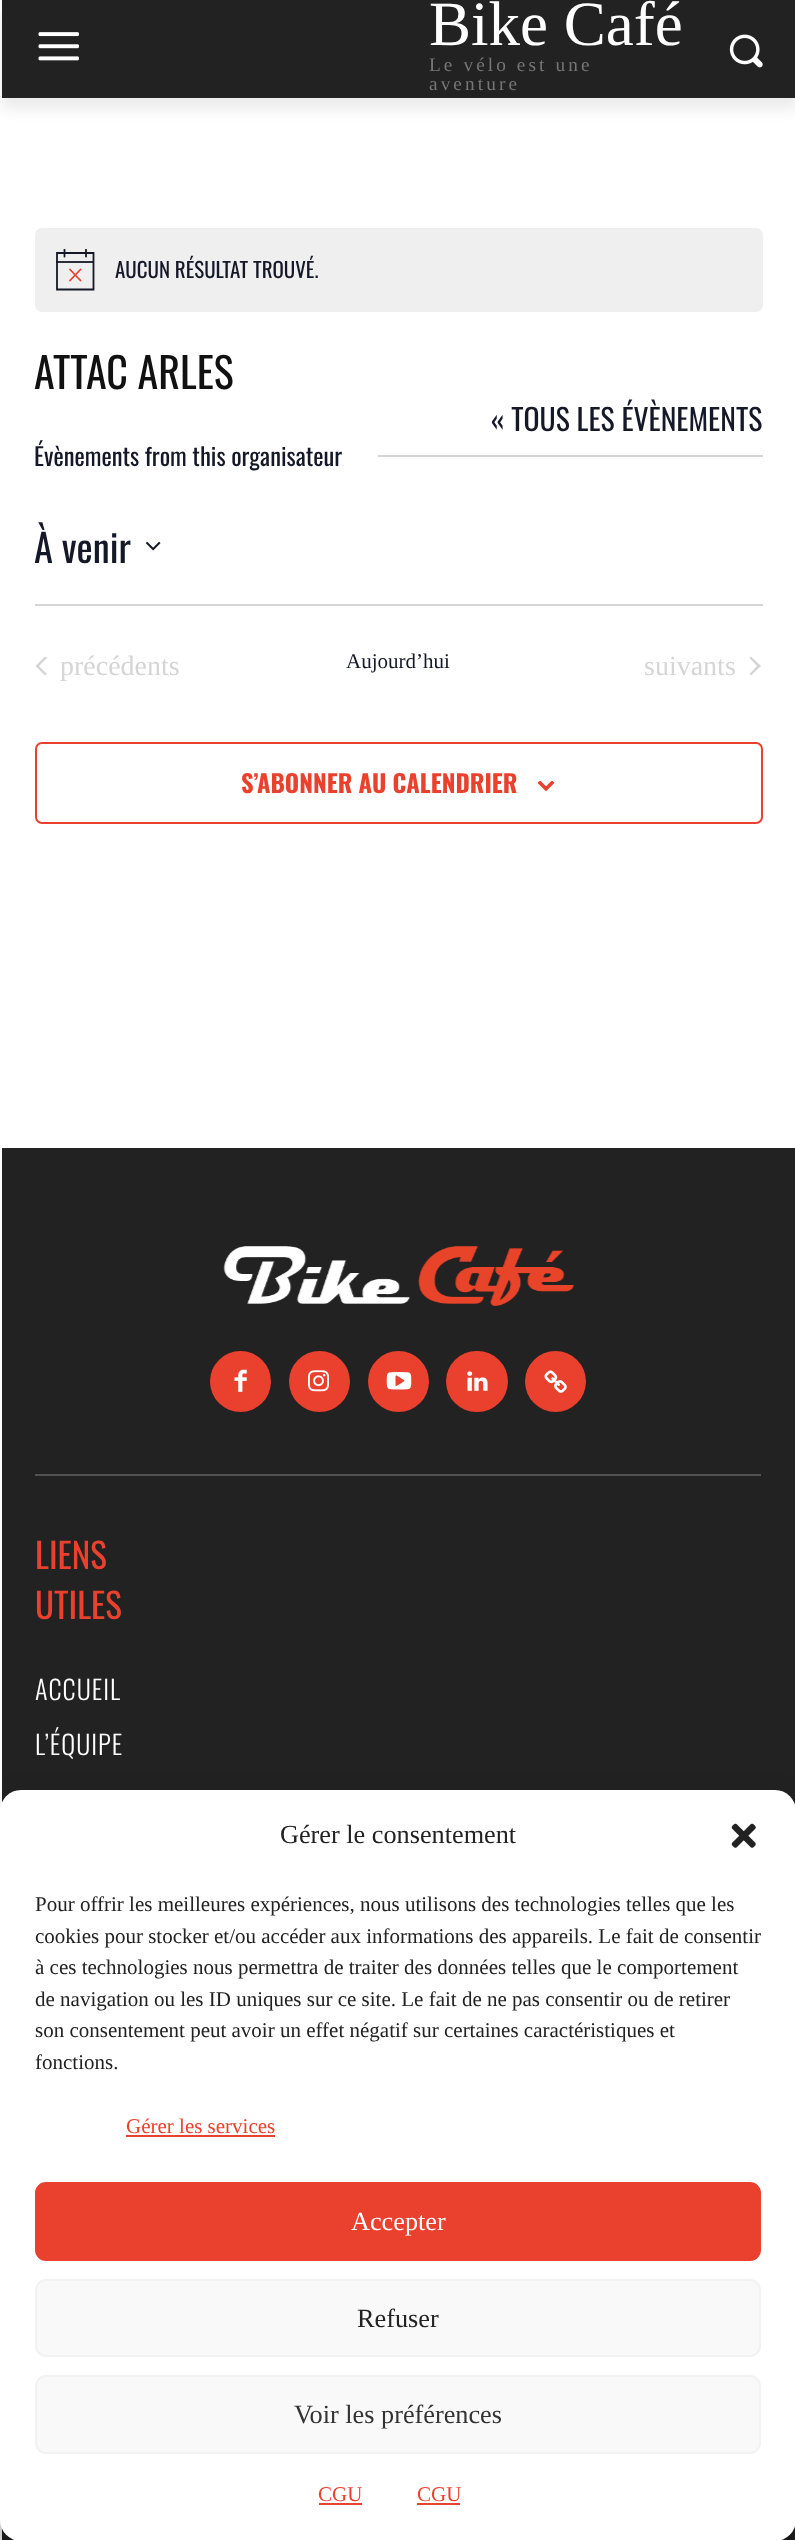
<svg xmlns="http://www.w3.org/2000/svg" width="795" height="2540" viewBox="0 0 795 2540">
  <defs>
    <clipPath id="clip1"><path d="M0 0H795V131H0ZM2 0H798V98H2Z" clip-rule="evenodd"/></clipPath>
    <clipPath id="clip2"><rect x="56" y="249" width="39" height="42"/></clipPath>
  </defs>
  <rect width="100%" height="100%" fill="rgb(255,255,255)"/>
  <rect x="2" y="0" width="793" height="98" fill="rgb(34,34,34)"/>
  <image x="38" y="32" width="41" height="29" href="pic1.png"/>
  <image x="729" y="34" width="34" height="34" href="pic2.png"/>
  <g clip-path="url(#clip1)">
    <rect x="2" y="11" width="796" height="98" fill="rgba(0,0,0,0.08)" filter="blur(7px)"/>
  </g>
  <text x="429" y="45" font-family="Liberation Serif" font-size="63" fill="rgb(255,255,255)">Bike Café</text>
  <g font-family="Liberation Serif" font-size="19.25" letter-spacing="3.1" fill="rgb(118,118,118)">
    <text>
      <tspan x="429" y="71">Le vélo est une</tspan>
      <tspan x="429" y="90">aventure</tspan>
    </text>
  </g>
  <rect x="35" y="228" width="728" height="84" rx="7" fill="rgb(239,239,240)"/>
  <path d="M57 253H93.5V289.5H57Z" fill="none" stroke="rgb(20,24,39)" stroke-width="1.8"/>
  <path d="M70 269.5L80.5 280.5M80.5 269.5L70 280.5" fill="none" stroke="rgb(234,65,46)" stroke-width="1.8" stroke-linecap="round"/>
  <g clip-path="url(#clip2)">
    <path d="M64.5 249.5V256.5M86 249.5V256.5" fill="none" stroke="rgb(20,24,39)" stroke-width="1.8" stroke-linecap="round"/>
  </g>
  <rect x="56" y="261" width="38" height="2" fill="rgba(20,24,39,0.9)"/>
  <text x="115" y="278" font-family="Oswald" font-size="21" fill="rgb(20,24,39)">AUCUN RÉSULTAT TROUVÉ.</text>
  <text x="34" y="389" font-family="Oswald" font-size="42" fill="rgb(17,17,17)">ATTAC ARLES</text>
  <text x="491" y="431" font-family="Oswald" font-size="29.75" fill="rgb(20,24,39)">« TOUS LES ÉVÈNEMENTS</text>
  <text x="34" y="466" font-family="Oswald" font-size="24.5" fill="rgb(20,24,39)">Évènements from this organisateur</text>
  <rect x="378" y="455" width="385" height="2" fill="rgb(213,213,213)"/>
  <text x="34" y="563" font-family="Oswald" font-size="38.5" fill="rgb(20,24,39)">À venir</text>
  <image x="145" y="541" width="16" height="10" href="pic3.png"/>
  <rect x="35" y="604" width="728" height="2" fill="rgb(213,213,213)"/>
  <path d="M47 674L45 675.5L35.5 666L45 656.5L47 658L39 666Z" fill="rgb(213,213,213)"/>
  <text x="60" y="675" font-family="Liberation Serif" font-size="28" fill="rgb(213,213,213)">précédents</text>
  <text x="346" y="668" font-family="Liberation Serif" font-size="21" fill="rgb(20,24,39)">Aujourd’hui</text>
  <text x="644" y="675" font-family="Liberation Serif" font-size="28" fill="rgb(213,213,213)">suivants</text>
  <path d="M749.5 658L751 656.5L761 666L751 675.5L749.5 674L757 666Z" fill="rgb(213,213,213)"/>
  <rect x="36" y="743" width="726" height="80" rx="6" fill="none" stroke="rgb(234,65,46)" stroke-width="2"/>
  <text x="241" y="793" font-family="Oswald" font-size="24.5" font-weight="bold" fill="rgb(234,65,46)">S’ABONNER AU CALENDRIER</text>
  <image x="537" y="781" width="18" height="10" href="pic4.png"/>
  <rect x="2" y="1148" width="793" height="1392" fill="rgb(34,34,34)"/>
  <rect x="35" y="1474" width="726" height="2" fill="rgb(81,81,81)"/>
  <image x="223" y="1246" width="352" height="60" href="pic5.png"/>
  <circle cx="240.5" cy="1381.5" r="30.5" fill="rgb(234,65,46)"/>
  <image x="234" y="1369" width="13" height="23" href="pic6.png"/>
  <circle cx="319.5" cy="1381.5" r="30.5" fill="rgb(234,65,46)"/>
  <image x="308" y="1370" width="21" height="22" href="pic7.png"/>
  <circle cx="398.5" cy="1381.5" r="30.5" fill="rgb(234,65,46)"/>
  <image x="386" y="1372" width="26" height="18" href="pic8.png"/>
  <rect x="446" y="1351" width="62" height="61" rx="30.5" fill="rgb(234,65,46)"/>
  <image x="467" y="1371" width="21" height="20" href="pic9.png"/>
  <circle cx="555.5" cy="1381.5" r="30.5" fill="rgb(234,65,46)"/>
  <image x="544" y="1370" width="23" height="23" href="pic10.png"/>
  <g font-family="Oswald" font-size="35" fill="rgb(234,65,46)">
    <text>
      <tspan x="35" y="1569">LIENS</tspan>
      <tspan x="35" y="1619">UTILES</tspan>
    </text>
  </g>
  <g font-family="Oswald" font-size="26.25" font-weight="300" letter-spacing="1" fill="rgb(255,255,255)">
    <text x="35" y="1700">ACCUEIL</text>
    <text x="35" y="1755">L’ÉQUIPE</text>
  </g>
  <rect x="0" y="1801" width="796" height="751" rx="21" fill="rgba(0,0,0,0.23)" filter="blur(5px)"/>
  <rect x="0" y="1808" width="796" height="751" rx="21" fill="rgba(0,0,0,0.19)" filter="blur(17.5px)"/>
  <rect x="0" y="1790" width="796" height="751" rx="21" fill="rgb(255,255,255)"/>
  <text x="280" y="1843" font-family="Liberation Serif" font-size="26.25" fill="rgb(34,34,34)">Gérer le consentement</text>
  <image x="731" y="1823" width="25" height="25" href="pic11.png"/>
  <g font-family="Liberation Serif" font-size="21" fill="rgb(34,34,34)">
    <text>
      <tspan x="35" y="1911">Pour offrir les meilleures expériences, nous utilisons des technologies telles que les</tspan>
      <tspan x="35" y="1943">cookies pour stocker et/ou accéder aux informations des appareils. Le fait de consentir</tspan>
      <tspan x="35" y="1974">à ces technologies nous permettra de traiter des données telles que le comportement</tspan>
      <tspan x="35" y="2006">de navigation ou les ID uniques sur ce site. Le fait de ne pas consentir ou de retirer</tspan>
      <tspan x="35" y="2037">son consentement peut avoir un effet négatif sur certaines caractéristiques et</tspan>
      <tspan x="35" y="2069">fonctions.</tspan>
    </text>
  </g>
  <text x="126" y="2133" font-family="Liberation Serif" font-size="21" fill="rgb(234,65,46)">Gérer les services</text>
  <rect x="126" y="2135" width="149" height="2" fill="rgb(234,65,46)"/>
  <rect x="36" y="2183" width="724" height="77" rx="10" fill="rgb(234,65,46)" stroke="rgb(234,65,46)" stroke-width="2"/>
  <text x="351" y="2230" font-family="Liberation Serif" font-size="26.25" fill="rgb(255,255,255)">Accepter</text>
  <rect x="36" y="2280" width="724" height="76" rx="10" fill="rgb(249,249,249)" stroke="rgb(242,242,242)" stroke-width="2"/>
  <text x="357" y="2327" font-family="Liberation Serif" font-size="26.25" fill="rgb(34,34,34)">Refuser</text>
  <rect x="36" y="2376" width="724" height="77" rx="10" fill="rgb(249,249,249)" stroke="rgb(242,242,242)" stroke-width="2"/>
  <text x="294" y="2423" font-family="Liberation Serif" font-size="26.25" fill="rgb(51,51,51)">Voir les préférences</text>
  <text x="318" y="2501" font-family="Liberation Serif" font-size="21" fill="rgb(234,65,46)">CGU</text>
  <rect x="319" y="2503" width="43" height="2" fill="rgb(234,65,46)"/>
  <text x="417" y="2501" font-family="Liberation Serif" font-size="21" fill="rgb(234,65,46)">CGU</text>
  <rect x="417" y="2503" width="43" height="2" fill="rgb(234,65,46)"/>
</svg>
